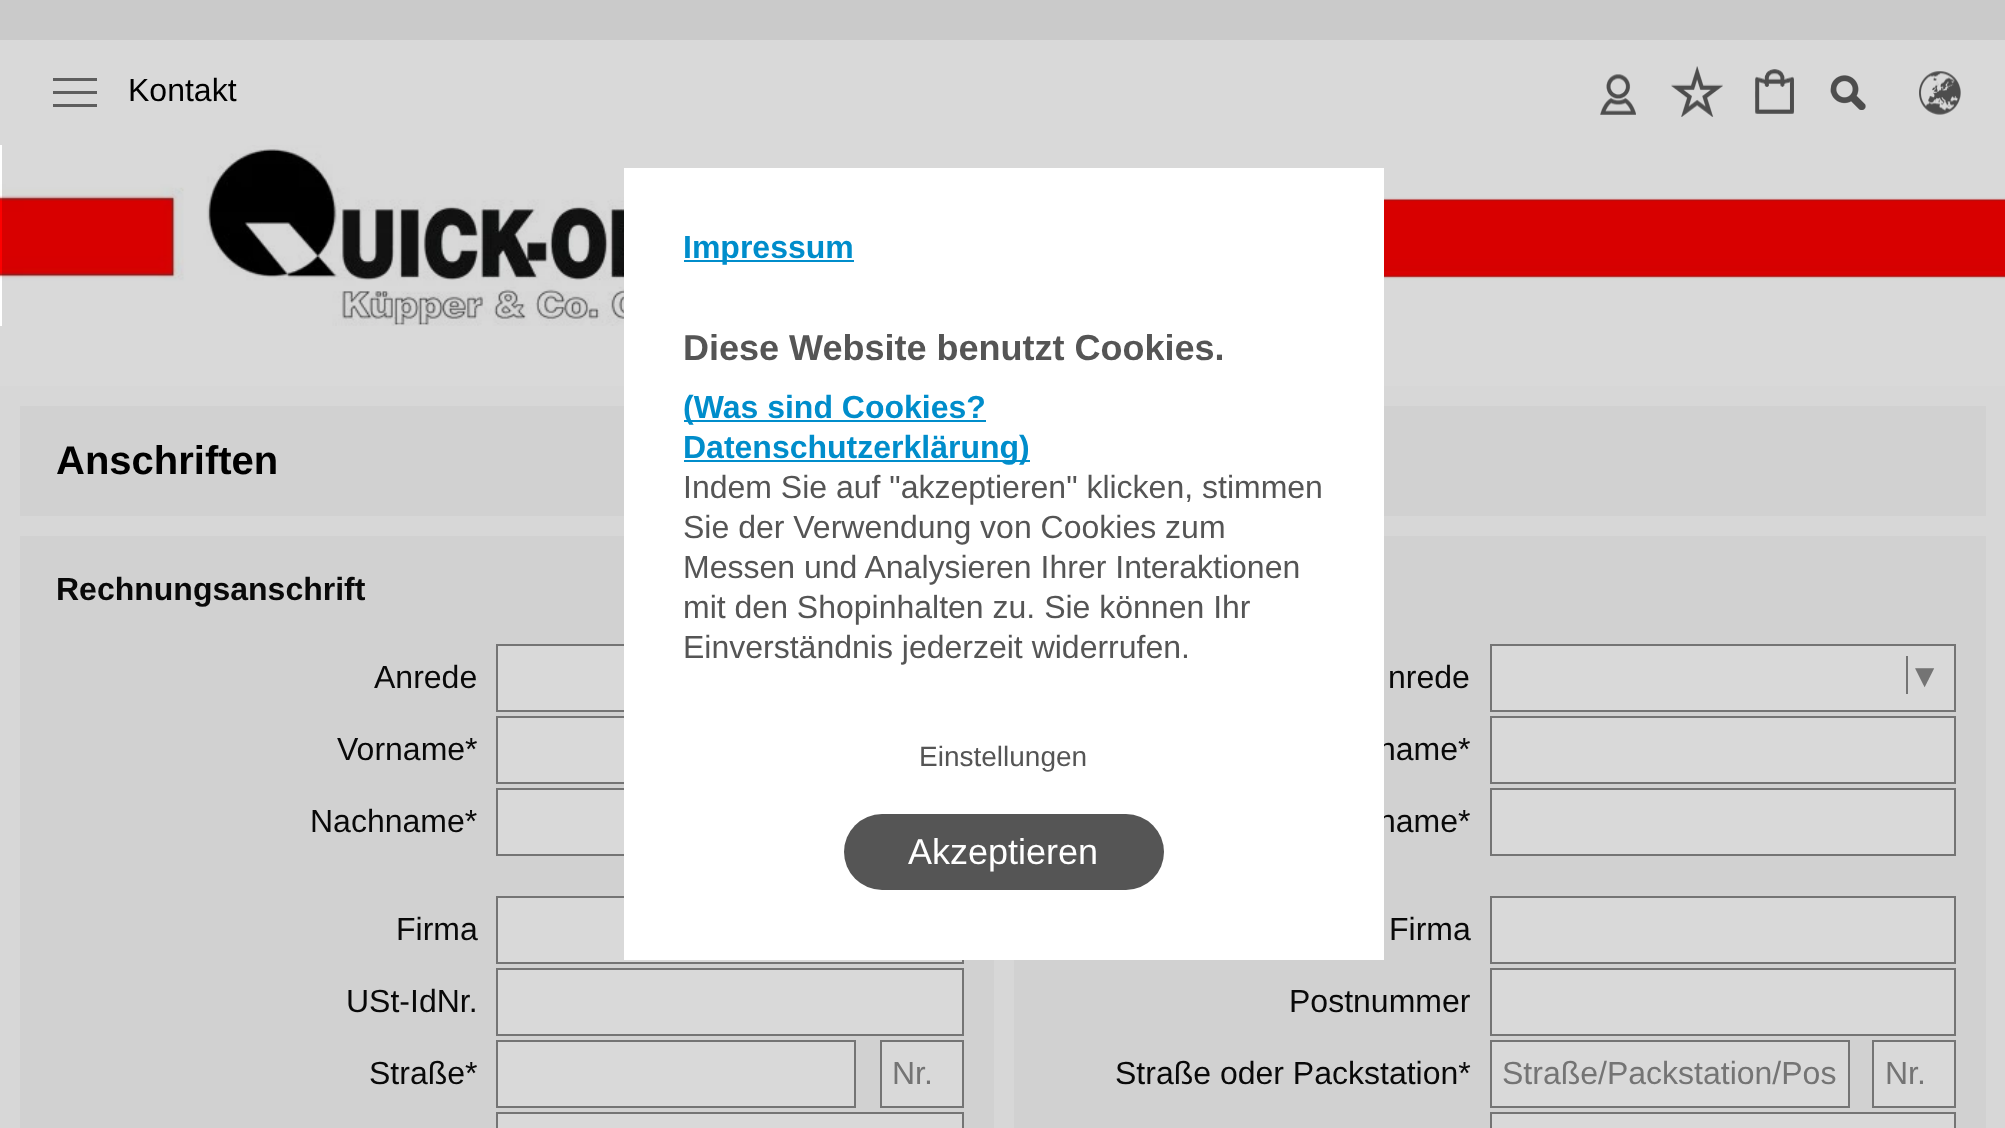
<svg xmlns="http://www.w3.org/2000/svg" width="2005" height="1128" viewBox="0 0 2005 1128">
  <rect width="100%" height="100%" fill="rgb(202,202,202)"/>
  <rect x="0" y="40" width="2005" height="346" fill="rgb(217,217,217)"/>
  <image x="0" y="145" width="2005" height="181" href="pic1.png"/>
  <image x="53" y="78" width="44" height="29" href="pic2.png"/>
  <text x="128" y="101" font-family="Liberation Sans" font-size="32" fill="rgb(0,0,0)">Kontakt</text>
  <image x="1600" y="74" width="36" height="41" href="pic3.png"/>
  <image x="1671" y="66" width="52" height="51" href="pic4.png"/>
  <image x="1755" y="69" width="39" height="45" href="pic5.png"/>
  <image x="1830" y="75" width="36" height="35" href="pic6.png"/>
  <image x="1919" y="71" width="42" height="44" href="pic7.png"/>
  <rect x="0" y="386" width="2005" height="742" fill="rgb(215,215,215)"/>
  <rect x="20" y="406" width="1966" height="110" fill="rgb(209,209,209)"/>
  <text x="56" y="474" font-family="Liberation Sans" font-size="40" font-weight="bold" fill="rgb(0,0,0)">Anschriften</text>
  <rect x="20" y="536" width="974" height="592" fill="rgb(209,209,209)"/>
  <text x="56" y="600" font-family="Liberation Sans" font-size="32" font-weight="bold" fill="rgb(9,9,9)">Rechnungsanschrift</text>
  <text x="374" y="688" font-family="Liberation Sans" font-size="32" fill="rgb(9,9,9)">Anrede</text>
  <rect x="498" y="646" width="126" height="64" fill="rgb(217,217,217)"/>
  <rect x="497" y="645" width="466" height="66" fill="none" stroke="rgb(116,116,116)" stroke-width="2"/>
  <text x="337" y="760" font-family="Liberation Sans" font-size="32" fill="rgb(9,9,9)">Vorname*</text>
  <rect x="498" y="718" width="126" height="64" fill="rgb(217,217,217)"/>
  <rect x="497" y="717" width="466" height="66" fill="none" stroke="rgb(116,116,116)" stroke-width="2"/>
  <text x="310" y="832" font-family="Liberation Sans" font-size="32" fill="rgb(9,9,9)">Nachname*</text>
  <rect x="498" y="790" width="126" height="64" fill="rgb(217,217,217)"/>
  <rect x="497" y="789" width="466" height="66" fill="none" stroke="rgb(116,116,116)" stroke-width="2"/>
  <text x="396" y="940" font-family="Liberation Sans" font-size="32" fill="rgb(9,9,9)">Firma</text>
  <rect x="497" y="897" width="466" height="66" fill="rgb(217,217,217)" stroke="rgb(116,116,116)" stroke-width="2"/>
  <text x="346" y="1012" font-family="Liberation Sans" font-size="32" fill="rgb(9,9,9)">USt-IdNr.</text>
  <rect x="497" y="969" width="466" height="66" fill="rgb(217,217,217)" stroke="rgb(116,116,116)" stroke-width="2"/>
  <text x="369" y="1084" font-family="Liberation Sans" font-size="32" fill="rgb(9,9,9)">Straße*</text>
  <rect x="497" y="1041" width="358" height="66" fill="rgb(217,217,217)" stroke="rgb(116,116,116)" stroke-width="2"/>
  <rect x="881" y="1041" width="82" height="66" fill="rgb(217,217,217)" stroke="rgb(116,116,116)" stroke-width="2"/>
  <text x="892" y="1084" font-family="Liberation Sans" font-size="32" fill="rgb(116,116,116)">Nr.</text>
  <rect x="497" y="1113" width="466" height="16" fill="rgb(217,217,217)" stroke="rgb(116,116,116)" stroke-width="2"/>
  <rect x="1014" y="536" width="972" height="592" fill="rgb(209,209,209)"/>
  <text x="1388" y="688" font-family="Liberation Sans" font-size="32" fill="rgb(9,9,9)">nrede</text>
  <rect x="1492" y="646" width="422" height="64" fill="rgb(217,217,217)"/>
  <rect x="1491" y="645" width="464" height="66" fill="none" stroke="rgb(116,116,116)" stroke-width="2"/>
  <rect x="1914" y="646" width="40" height="64" fill="rgb(217,217,217)"/>
  <rect x="1906" y="656" width="2" height="38" fill="rgb(116,116,116)"/>
  <text x="1915" y="686" font-family="DejaVu Sans Mono" font-size="32" fill="rgb(116,116,116)">▼</text>
  <text x="1378" y="760" font-family="Liberation Sans" font-size="32" fill="rgb(9,9,9)">name*</text>
  <rect x="1491" y="717" width="464" height="66" fill="rgb(217,217,217)" stroke="rgb(116,116,116)" stroke-width="2"/>
  <text x="1378" y="832" font-family="Liberation Sans" font-size="32" fill="rgb(9,9,9)">name*</text>
  <rect x="1491" y="789" width="464" height="66" fill="rgb(217,217,217)" stroke="rgb(116,116,116)" stroke-width="2"/>
  <text x="1389" y="940" font-family="Liberation Sans" font-size="32" fill="rgb(9,9,9)">Firma</text>
  <rect x="1491" y="897" width="464" height="66" fill="rgb(217,217,217)" stroke="rgb(116,116,116)" stroke-width="2"/>
  <text x="1289" y="1012" font-family="Liberation Sans" font-size="32" fill="rgb(9,9,9)">Postnummer</text>
  <rect x="1491" y="969" width="464" height="66" fill="rgb(217,217,217)" stroke="rgb(116,116,116)" stroke-width="2"/>
  <text x="1115" y="1084" font-family="Liberation Sans" font-size="32" fill="rgb(9,9,9)">Straße oder Packstation*</text>
  <rect x="1491" y="1041" width="358" height="66" fill="rgb(217,217,217)" stroke="rgb(116,116,116)" stroke-width="2"/>
  <text x="1502" y="1084" font-family="Liberation Sans" font-size="32" fill="rgb(116,116,116)">Straße/Packstation/Pos</text>
  <rect x="1873" y="1041" width="82" height="66" fill="rgb(217,217,217)" stroke="rgb(116,116,116)" stroke-width="2"/>
  <text x="1885" y="1084" font-family="Liberation Sans" font-size="32" fill="rgb(116,116,116)">Nr.</text>
  <rect x="1491" y="1113" width="464" height="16" fill="rgb(217,217,217)" stroke="rgb(116,116,116)" stroke-width="2"/>
  <rect x="624" y="168" width="760" height="792" fill="rgb(255,255,255)"/>
  <rect x="684" y="260" width="170" height="2" fill="rgb(0,141,203)"/>
  <text x="683" y="258" font-family="Liberation Sans" font-size="32" font-weight="bold" fill="rgb(0,141,203)">Impressum</text>
  <text x="683" y="360" font-family="Liberation Sans" font-size="36" font-weight="bold" fill="rgb(85,85,85)">Diese Website benutzt Cookies.</text>
  <rect x="684" y="420" width="302" height="2" fill="rgb(0,141,203)"/>
  <text x="683" y="418" font-family="Liberation Sans" font-size="32" font-weight="bold" fill="rgb(0,141,203)">(Was sind Cookies?</text>
  <rect x="684" y="460" width="346" height="2" fill="rgb(0,141,203)"/>
  <text x="683" y="458" font-family="Liberation Sans" font-size="32" font-weight="bold" fill="rgb(0,141,203)">Datenschutzerklärung)</text>
  <g font-family="Liberation Sans" font-size="32" fill="rgb(85,85,85)">
    <text>
      <tspan x="683" y="498">Indem Sie auf "akzeptieren" klicken, stimmen</tspan>
      <tspan x="683" y="538">Sie der Verwendung von Cookies zum</tspan>
      <tspan x="683" y="578">Messen und Analysieren Ihrer Interaktionen</tspan>
      <tspan x="683" y="618">mit den Shopinhalten zu. Sie können Ihr</tspan>
      <tspan x="683" y="658">Einverständnis jederzeit widerrufen.</tspan>
    </text>
  </g>
  <text x="919" y="766" font-family="Liberation Sans" font-size="28" fill="rgb(85,85,85)">Einstellungen</text>
  <rect x="844" y="814" width="320" height="76" rx="38" fill="rgb(85,85,85)"/>
  <text x="908" y="864" font-family="Liberation Sans" font-size="36" fill="rgb(255,255,255)">Akzeptieren</text>
</svg>
